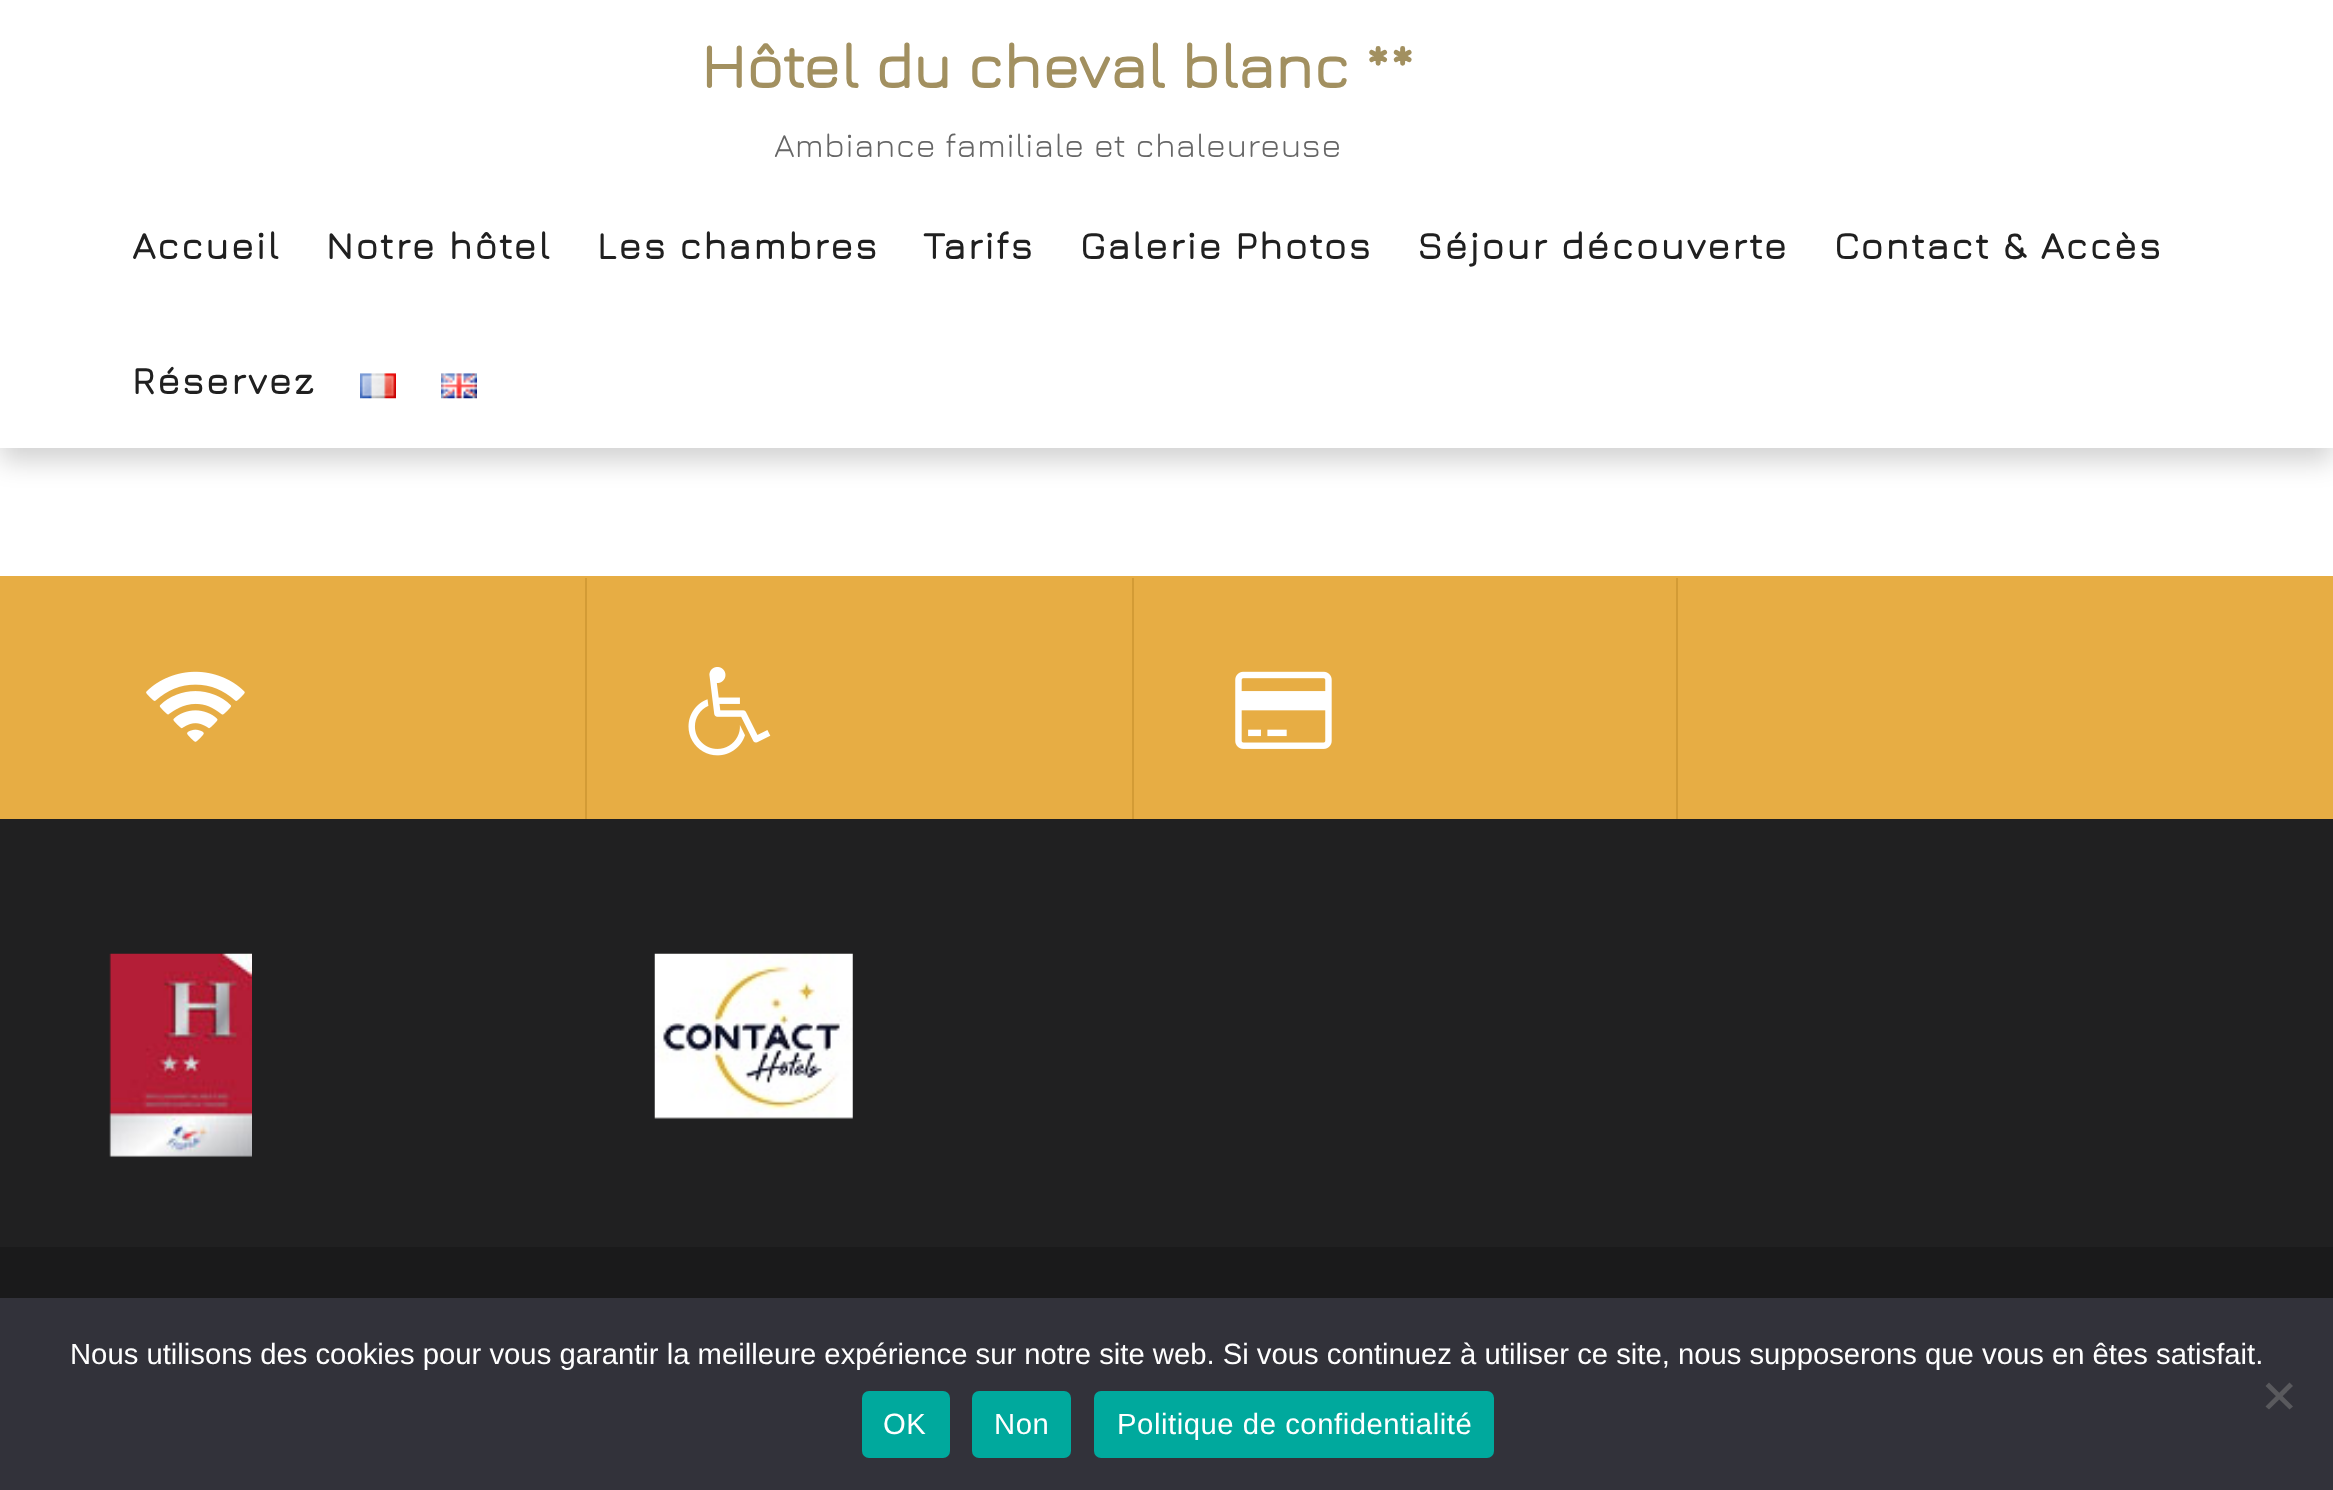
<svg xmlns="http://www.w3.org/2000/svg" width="2333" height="1490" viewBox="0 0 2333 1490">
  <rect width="100%" height="100%" fill="rgb(255,255,255)"/>
  <rect x="0" y="14" width="2333" height="447" fill="rgba(0,0,0,0.18)" filter="blur(13.5px)"/>
  <rect x="0" y="0" width="2333" height="448" fill="rgb(255,255,255)"/>
  <text x="701" y="88" font-family="Jura" font-size="63" font-weight="bold" fill="rgb(162,144,96)">Hôtel du cheval blanc **</text>
  <text x="774" y="157" font-family="Jura" font-size="33.75" font-weight="300" letter-spacing="0.45" fill="rgb(102,102,102)">Ambiance familiale et chaleureuse</text>
  <g font-family="Jura" font-size="38.25" font-weight="bold" letter-spacing="2.25" fill="rgb(32,32,32)">
    <text x="132" y="259">Accueil</text>
    <text x="326" y="259">Notre hôtel</text>
    <text x="597" y="259">Les chambres</text>
    <text x="923" y="259">Tarifs</text>
    <text x="1080" y="259">Galerie Photos</text>
    <text x="1417" y="259">Séjour découverte</text>
    <text x="1834" y="259">Contact &amp; Accès</text>
    <text x="132" y="394">Réservez</text>
  </g>
  <image x="360" y="373" width="36" height="26" href="pic1.png"/>
  <image x="441" y="373" width="36" height="26" href="pic2.png"/>
  <rect x="0" y="576" width="2333" height="243" fill="rgb(231,173,68)"/>
  <rect x="585" y="578" width="2" height="241" fill="rgb(211,155,53)"/>
  <image x="146" y="671" width="99" height="71" href="pic3.png"/>
  <rect x="1132" y="578" width="2" height="241" fill="rgb(211,155,53)"/>
  <image x="688" y="667" width="83" height="89" href="pic4.png"/>
  <rect x="1676" y="578" width="2" height="241" fill="rgb(211,155,53)"/>
  <image x="1235" y="671" width="97" height="78" href="pic5.png"/>
  <rect x="0" y="819" width="2333" height="428" fill="rgb(32,32,33)"/>
  <image x="109" y="953" width="143" height="204" href="pic6.png"/>
  <image x="654" y="953" width="199" height="166" href="pic7.png"/>
  <rect x="0" y="1247" width="2333" height="51" fill="rgb(26,26,27)"/>
  <rect x="0" y="1298" width="2333" height="192" fill="rgb(50,50,58)"/>
  <text x="70" y="1364" font-family="Liberation Sans" font-size="29.25" fill="rgb(255,255,255)">Nous utilisons des cookies pour vous garantir la meilleure expérience sur notre site web. Si vous continuez à utiliser ce site, nous supposerons que vous en êtes satisfait.</text>
  <path d="M2289.5 1382.5L2293 1386L2269 1409.5L2265.5 1406.5Z" fill="rgb(89,89,93)"/>
  <path d="M2265.5 1386L2269 1382.5L2293 1406.5L2289.5 1409.5Z" fill="rgb(89,89,93)"/>
  <rect x="862" y="1391" width="88" height="67" rx="7" fill="rgb(0,169,157)"/>
  <text x="883" y="1434" font-family="Liberation Sans" font-size="29.25" letter-spacing="0.55" fill="rgb(255,255,255)">OK</text>
  <rect x="972" y="1391" width="99" height="67" rx="7" fill="rgb(0,169,157)"/>
  <text x="994" y="1434" font-family="Liberation Sans" font-size="29.25" letter-spacing="0.55" fill="rgb(255,255,255)">Non</text>
  <rect x="1094" y="1391" width="400" height="67" rx="7" fill="rgb(0,169,157)"/>
  <text x="1117" y="1434" font-family="Liberation Sans" font-size="29.25" letter-spacing="0.55" fill="rgb(255,255,255)">Politique de confidentialité</text>
</svg>
